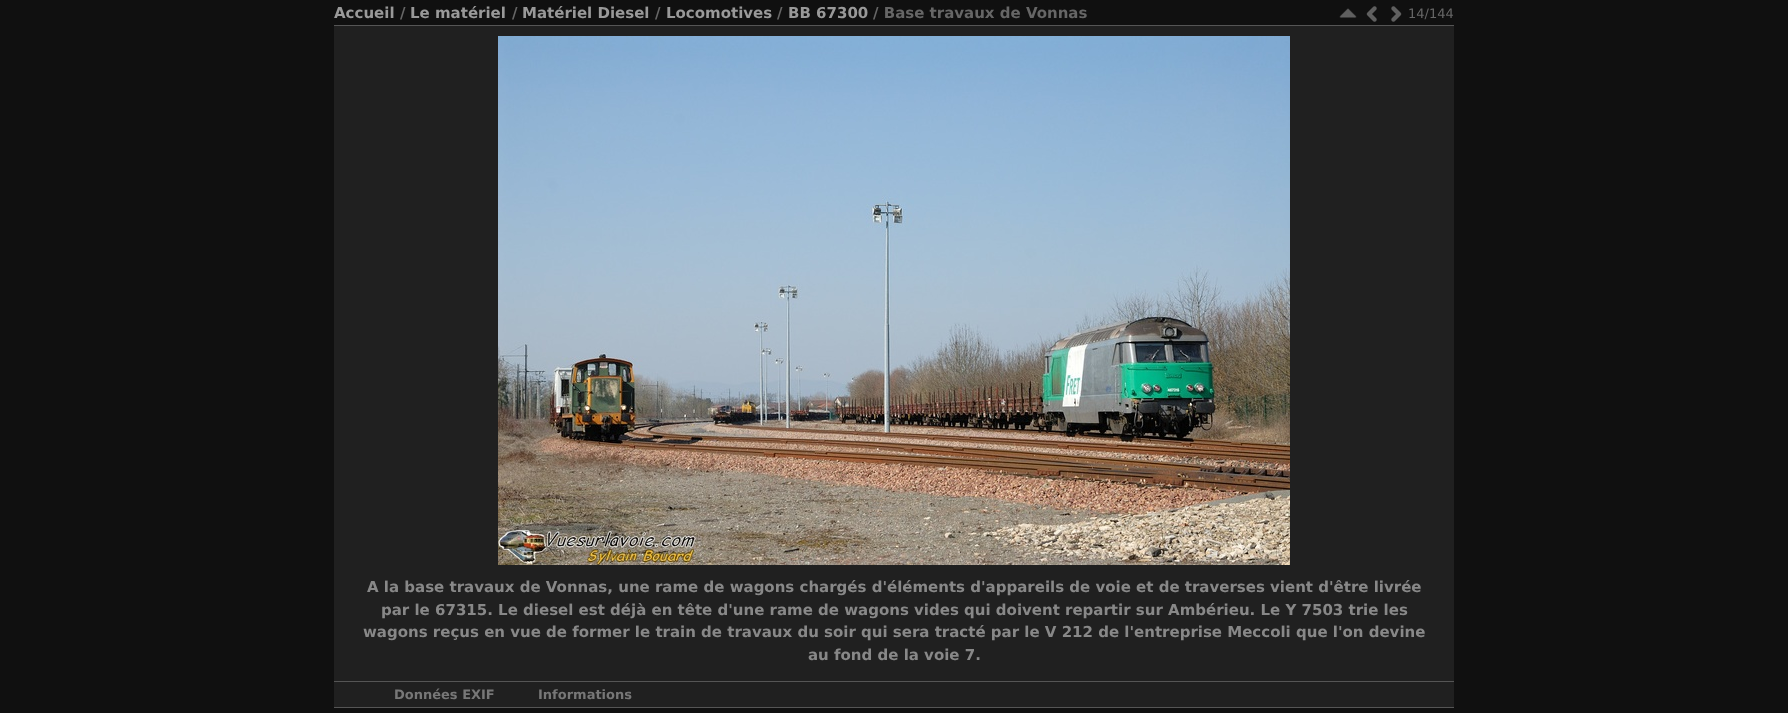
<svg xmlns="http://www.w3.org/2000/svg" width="1788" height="713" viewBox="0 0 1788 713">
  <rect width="100%" height="100%" fill="rgb(16,16,16)"/>
  <text x="334" y="18" font-family="DejaVu Sans" font-size="15" font-weight="bold" fill="rgb(153,153,153)">Accueil</text>
  <text x="400" y="18" font-family="DejaVu Sans" font-size="15" font-weight="bold" fill="rgb(102,102,102)">/</text>
  <text x="410" y="18" font-family="DejaVu Sans" font-size="15" font-weight="bold" fill="rgb(153,153,153)">Le matériel</text>
  <text x="512" y="18" font-family="DejaVu Sans" font-size="15" font-weight="bold" fill="rgb(102,102,102)">/</text>
  <text x="522" y="18" font-family="DejaVu Sans" font-size="15" font-weight="bold" fill="rgb(153,153,153)">Matériel Diesel</text>
  <text x="655" y="18" font-family="DejaVu Sans" font-size="15" font-weight="bold" fill="rgb(102,102,102)">/</text>
  <text x="666" y="18" font-family="DejaVu Sans" font-size="15" font-weight="bold" fill="rgb(153,153,153)">Locomotives</text>
  <text x="777" y="18" font-family="DejaVu Sans" font-size="15" font-weight="bold" fill="rgb(102,102,102)">/</text>
  <text x="788" y="18" font-family="DejaVu Sans" font-size="15" font-weight="bold" fill="rgb(153,153,153)">BB 67300</text>
  <text x="873" y="18" font-family="DejaVu Sans" font-size="15" font-weight="bold" fill="rgb(102,102,102)">/ Base travaux de Vonnas</text>
  <image x="1339" y="8" width="18" height="10" href="pic1.png"/>
  <image x="1366" y="6" width="11" height="16" href="pic2.png"/>
  <image x="1391" y="6" width="11" height="16" href="pic3.png"/>
  <text x="1408" y="18" font-family="DejaVu Sans" font-size="13" fill="rgb(102,102,102)">14/144</text>
  <rect x="334" y="26" width="1120" height="681" fill="rgb(32,32,32)"/>
  <rect x="334" y="25" width="1120" height="1" fill="rgb(85,85,85)"/>
  <rect x="334" y="707" width="1120" height="1" fill="rgb(85,85,85)"/>
  <image x="498" y="36" width="792" height="529" href="pic4.png"/>
  <g font-family="DejaVu Sans" font-size="15" font-weight="bold" fill="rgb(136,136,136)">
    <text x="367" y="592">A la base travaux de Vonnas, une rame de wagons chargés d'éléments d'appareils de voie et de traverses vient d'être livrée</text>
    <text x="381" y="615">par le 67315. Le diesel est déjà en tête d'une rame de wagons vides qui doivent repartir sur Ambérieu. Le Y 7503 trie les</text>
    <text x="363" y="637">wagons reçus en vue de former le train de travaux du soir qui sera tracté par le V 212 de l'entreprise Meccoli que l'on devine</text>
    <text x="808" y="660">au fond de la voie 7.</text>
  </g>
  <rect x="334" y="681" width="1120" height="1" fill="rgb(85,85,85)"/>
  <g font-family="DejaVu Sans" font-size="13" font-weight="bold" fill="rgb(119,119,119)">
    <text x="394" y="699">Données EXIF</text>
    <text x="538" y="699">Informations</text>
  </g>
</svg>
